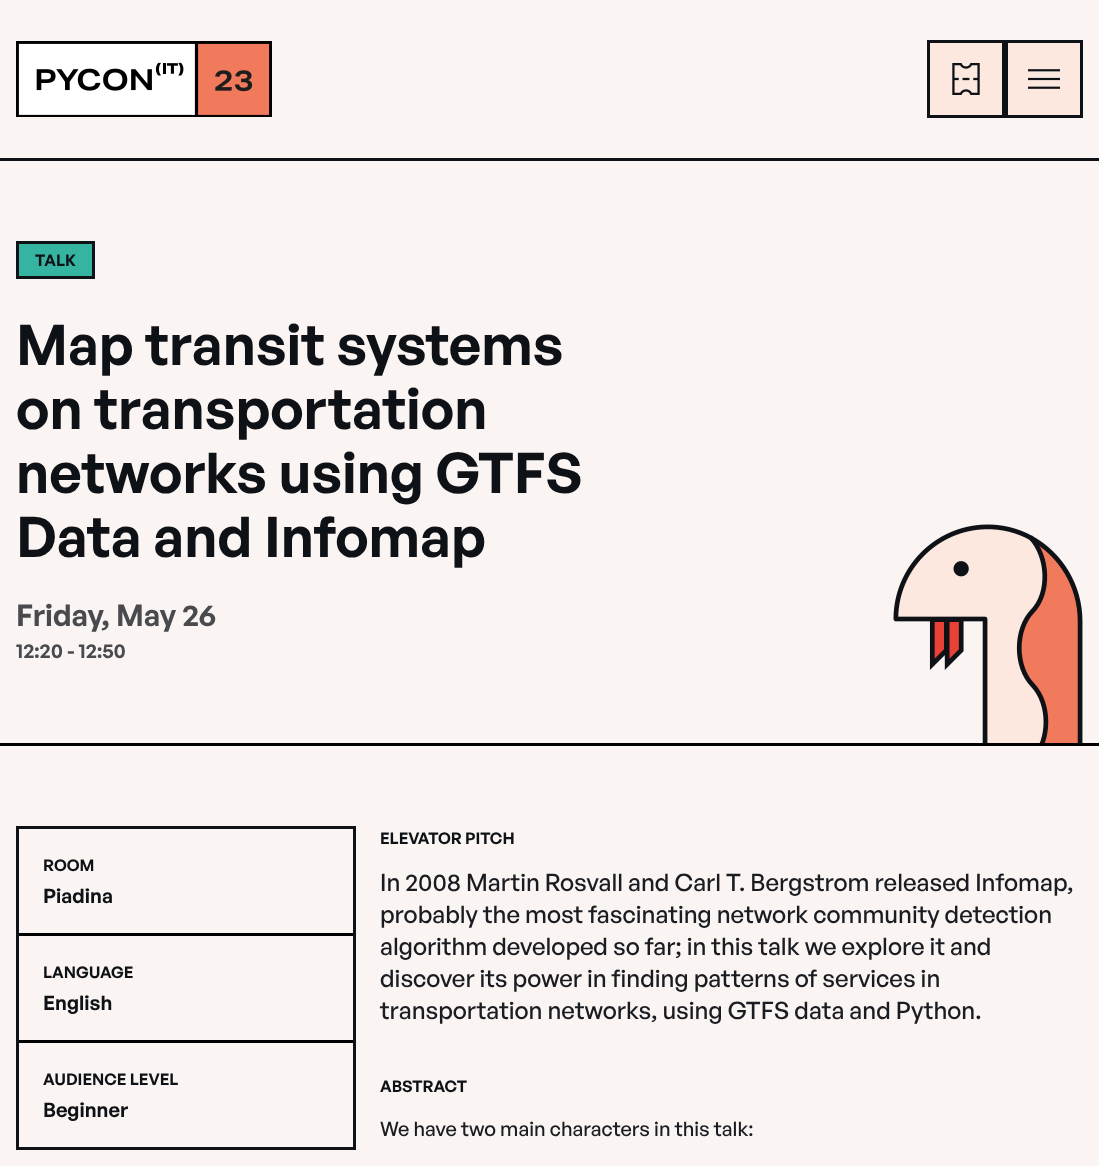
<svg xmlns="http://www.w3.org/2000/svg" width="1099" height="1166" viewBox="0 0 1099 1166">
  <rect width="100%" height="100%" fill="rgb(250,245,243)"/>
  <image x="16" y="41" width="256" height="76" href="pic1.png"/>
  <rect x="928.5" y="41.5" width="75" height="75" fill="rgb(252,232,222)" stroke="rgb(14,17,22)" stroke-width="3"/>
  <image x="952" y="63" width="28" height="32" href="pic2.png"/>
  <rect x="1006.5" y="41.5" width="75" height="75" fill="rgb(252,232,222)" stroke="rgb(14,17,22)" stroke-width="3"/>
  <image x="1028" y="69" width="32" height="20" href="pic3.png"/>
  <rect x="0" y="158" width="1099" height="3" fill="rgb(14,17,22)"/>
  <rect x="17.5" y="242.5" width="76" height="35" fill="rgb(52,180,161)" stroke="rgb(14,17,22)" stroke-width="3"/>
  <text x="35" y="266" font-family="General Sans" font-size="16" font-weight="600" fill="rgb(14,17,22)">TALK</text>
  <g font-family="General Sans" font-size="56" font-weight="600" fill="rgb(14,17,22)">
    <text>
      <tspan x="16" y="365">Map transit systems</tspan>
      <tspan x="16" y="429">on transportation</tspan>
      <tspan x="16" y="493">networks using GTFS</tspan>
      <tspan x="16" y="557">Data and Infomap</tspan>
    </text>
  </g>
  <text x="16" y="626" font-family="General Sans" font-size="30" font-weight="600" fill="rgb(73,74,77)">Friday, May 26</text>
  <text x="16" y="658" font-family="General Sans" font-size="20" font-weight="600" fill="rgb(73,74,77)">12:20 - 12:50</text>
  <image x="893" y="524" width="190" height="219" href="pic4.png"/>
  <rect x="0" y="743" width="1099" height="3" fill="rgb(0,0,0)"/>
  <rect x="17.5" y="827.5" width="337" height="321" fill="none" stroke="rgb(14,17,22)" stroke-width="3"/>
  <text x="43" y="871" font-family="General Sans" font-size="16" font-weight="600" fill="rgb(14,17,22)">ROOM</text>
  <text x="43" y="903" font-family="General Sans" font-size="20" font-weight="600" fill="rgb(14,17,22)">Piadina</text>
  <rect x="19" y="933" width="334" height="3" fill="rgb(0,0,0)"/>
  <text x="43" y="978" font-family="General Sans" font-size="16" font-weight="600" fill="rgb(14,17,22)">LANGUAGE</text>
  <text x="43" y="1010" font-family="General Sans" font-size="20" font-weight="600" fill="rgb(14,17,22)">English</text>
  <rect x="19" y="1040" width="334" height="3" fill="rgb(0,0,0)"/>
  <text x="43" y="1085" font-family="General Sans" font-size="16" font-weight="600" fill="rgb(14,17,22)">AUDIENCE LEVEL</text>
  <text x="43" y="1117" font-family="General Sans" font-size="20" font-weight="600" fill="rgb(14,17,22)">Beginner</text>
  <text x="380" y="844" font-family="General Sans" font-size="16" font-weight="600" fill="rgb(14,17,22)">ELEVATOR PITCH</text>
  <g font-family="General Sans" font-size="24" font-weight="500" fill="rgb(26,28,33)">
    <text>
      <tspan x="380" y="891">In 2008 Martin Rosvall and Carl T. Bergstrom released Infomap,</tspan>
      <tspan x="380" y="923">probably the most fascinating network community detection</tspan>
      <tspan x="380" y="955">algorithm developed so far; in this talk we explore it and</tspan>
      <tspan x="380" y="987">discover its power in finding patterns of services in</tspan>
      <tspan x="380" y="1019">transportation networks, using GTFS data and Python.</tspan>
    </text>
  </g>
  <text x="380" y="1092" font-family="General Sans" font-size="16" font-weight="600" fill="rgb(14,17,22)">ABSTRACT</text>
  <text x="380" y="1136" font-family="General Sans" font-size="20" font-weight="500" fill="rgb(26,28,33)">We have two main characters in this talk:</text>
</svg>
